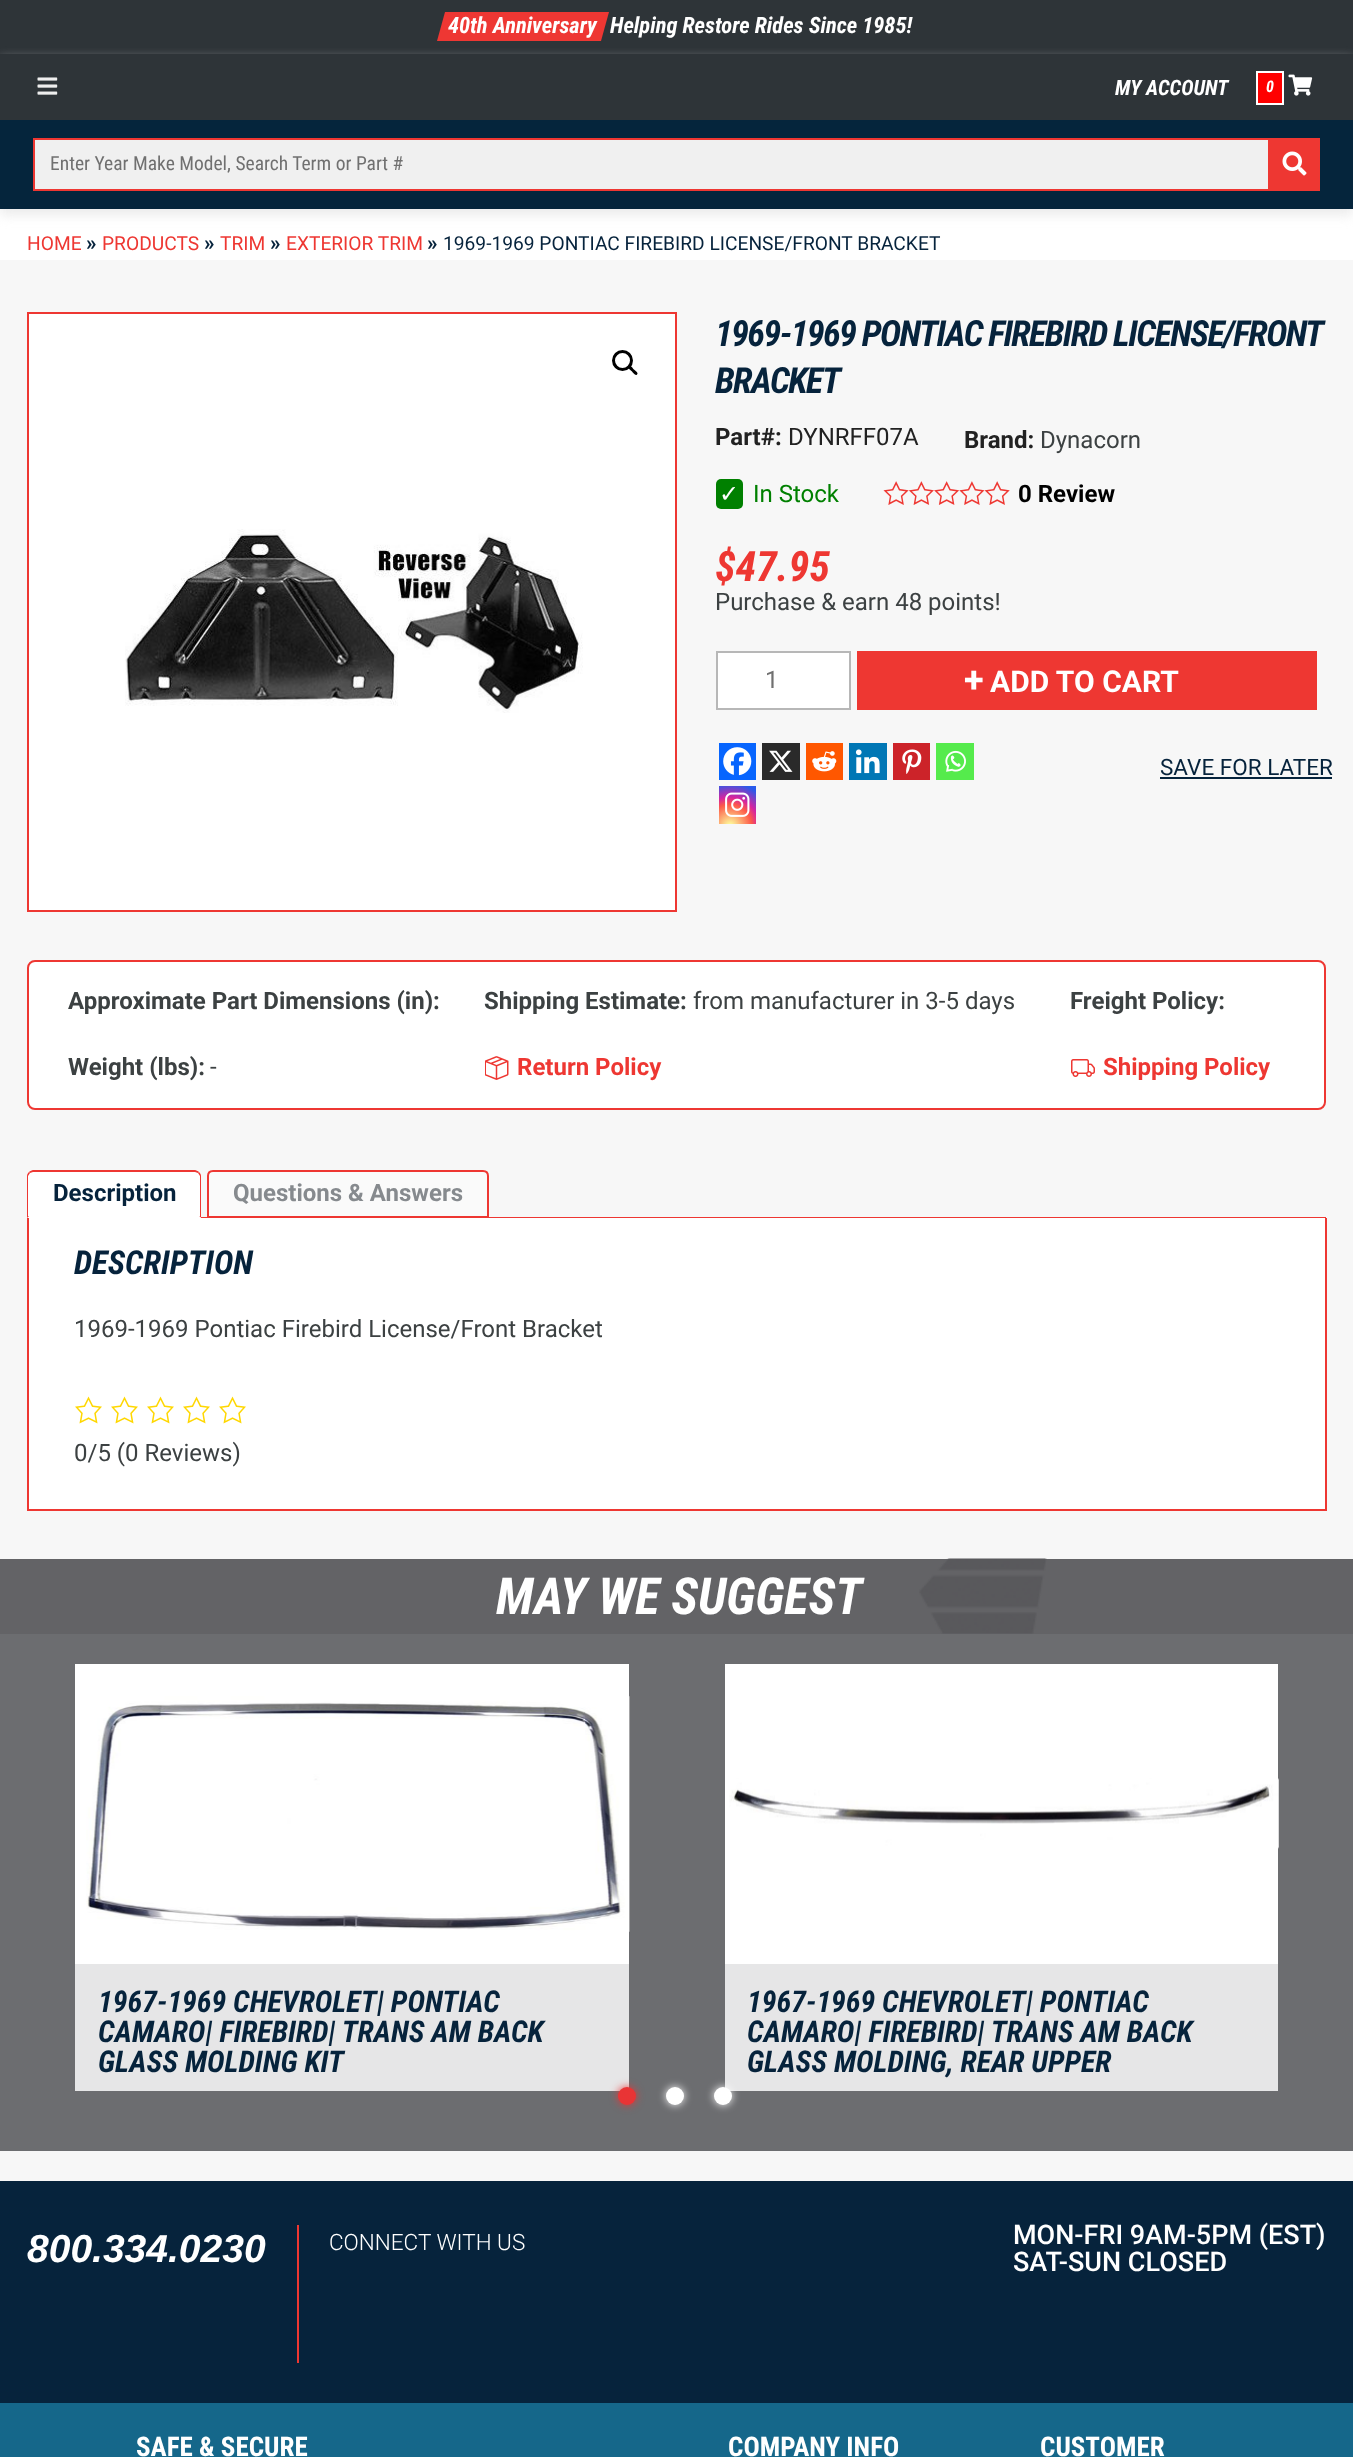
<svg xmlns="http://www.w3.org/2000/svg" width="1353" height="2457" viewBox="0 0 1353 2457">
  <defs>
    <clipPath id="clip1"><path d="M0 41H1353V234H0ZM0 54H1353V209H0Z" clip-rule="evenodd"/></clipPath>
    <radialGradient id="g1" gradientUnits="userSpaceOnUse" cx="730" cy="826" r="48"><stop offset="0" stop-color="rgb(253,244,151)"/><stop offset="0.05" stop-color="rgb(253,244,151)"/><stop offset="0.45" stop-color="rgb(253,89,73)"/><stop offset="0.6" stop-color="rgb(214,36,159)"/><stop offset="0.9" stop-color="rgb(40,90,235)"/></radialGradient>
  </defs>
  <rect width="100%" height="100%" fill="rgb(255,255,255)"/>
  <rect x="0" y="120" width="1353" height="89" fill="rgb(5,37,60)"/>
  <rect x="0" y="0" width="1353" height="54" fill="rgb(46,52,56)"/>
  <path d="M445 12H609L601 41H437Z" fill="rgb(238,55,51)"/>
  <g font-family="Roboto Condensed" font-size="22.5" font-weight="bold" font-style="italic" fill="rgb(255,255,255)">
    <text x="448" y="33">40th Anniversary</text>
    <text x="610" y="33">Helping Restore Rides Since 1985!</text>
  </g>
  <g clip-path="url(#clip1)">
    <rect x="0" y="60" width="1353" height="155" fill="rgba(230,230,230,0.8)" filter="blur(6px)"/>
  </g>
  <rect x="0" y="54" width="1353" height="66" fill="rgb(46,52,56)"/>
  <image x="37" y="77" width="21" height="18" href="pic1.png"/>
  <text x="1115" y="95" font-family="Roboto Condensed" font-size="21" font-weight="bold" font-style="italic" fill="rgb(255,255,255)">MY ACCOUNT</text>
  <rect x="1257" y="72" width="26" height="32" fill="rgb(255,0,0)" stroke="rgb(255,255,255)" stroke-width="2"/>
  <text x="1266" y="92" font-family="Roboto Condensed" font-size="16" font-weight="bold" font-style="italic" fill="rgb(255,255,255)">0</text>
  <image x="1288" y="74" width="25" height="22" href="pic2.png"/>
  <rect x="35" y="140" width="1233" height="49" fill="rgb(240,240,240)"/>
  <rect x="34" y="139" width="1285" height="51" fill="none" stroke="rgb(238,55,50)" stroke-width="2"/>
  <text x="50" y="170" font-family="Roboto Condensed" font-size="19.5" fill="rgb(112,112,112)">Enter Year Make Model, Search Term or Part #</text>
  <rect x="1268" y="140" width="50" height="49" fill="rgb(238,55,50)"/>
  <image x="1282" y="151" width="25" height="25" href="pic3.png"/>
  <text x="27" y="250" font-family="Roboto" font-size="19.2" fill="rgb(238,55,50)">HOME</text>
  <text x="86" y="250" font-family="Roboto" font-size="21" font-weight="bold" fill="rgb(6,35,60)">»</text>
  <text x="102" y="250" font-family="Roboto" font-size="19.2" fill="rgb(238,55,50)">PRODUCTS</text>
  <text x="204" y="250" font-family="Roboto" font-size="21" font-weight="bold" fill="rgb(6,35,60)">»</text>
  <text x="220" y="250" font-family="Roboto" font-size="19.2" fill="rgb(238,55,50)">TRIM</text>
  <text x="270" y="250" font-family="Roboto" font-size="21" font-weight="bold" fill="rgb(6,35,60)">»</text>
  <text x="286" y="250" font-family="Roboto" font-size="19.2" fill="rgb(238,55,50)">EXTERIOR TRIM</text>
  <text x="427" y="250" font-family="Roboto" font-size="21" font-weight="bold" fill="rgb(6,35,60)">»</text>
  <text x="443" y="250" font-family="Roboto" font-size="19.2" fill="rgb(6,35,60)">1969-1969 PONTIAC FIREBIRD LICENSE/FRONT BRACKET</text>
  <rect x="0" y="260" width="1353" height="1921" fill="rgb(247,247,247)"/>
  <rect x="28" y="313" width="648" height="598" fill="rgb(255,255,255)" stroke="rgb(238,55,50)" stroke-width="2"/>
  <image x="125" y="529" width="458" height="184" href="pic4.png"/>
  <circle cx="622.5" cy="360.5" r="9" fill="none" stroke="rgb(0,0,0)" stroke-width="3"/>
  <path d="M629 366C630.5 364.5 633 368.5 634 369.5C635 370.5 639 373 637 374.5C635.5 376.5 633 372.5 632 371.5C631 370.5 627 368 629 366Z" fill="rgb(0,0,0)"/>
  <g font-family="Roboto Condensed" font-size="36" font-weight="bold" font-style="italic" letter-spacing="-1.5" fill="rgb(6,35,60)">
    <text>
      <tspan x="715" y="346" word-spacing="-0.5">1969-1969 PONTIAC FIREBIRD LICENSE/FRONT</tspan>
      <tspan x="715" y="393">BRACKET</tspan>
    </text>
  </g>
  <text x="715" y="445" font-family="Roboto" font-size="24" font-weight="bold" fill="rgb(34,34,34)">Part#:</text>
  <text x="788" y="445" font-family="Roboto" font-size="24" fill="rgb(34,34,34)">DYNRFF07A</text>
  <text x="964" y="448" font-family="Roboto" font-size="24" font-weight="bold" fill="rgb(34,34,34)">Brand:</text>
  <text x="1040" y="448" font-family="Roboto" font-size="24" fill="rgb(60,65,66)">Dynacorn</text>
  <rect x="716" y="479" width="27" height="30" rx="5" fill="rgb(0,128,0)"/>
  <text x="719" y="502" font-family="DejaVu Sans" font-size="24" fill="rgb(255,255,255)">✓</text>
  <text x="753" y="502" font-family="Roboto" font-size="24" fill="rgb(0,128,0)">In Stock</text>
  <image x="883" y="481" width="127" height="24" href="pic5.png"/>
  <text x="1018" y="502" font-family="Roboto" font-size="24" font-weight="bold" fill="rgb(0,0,0)">0 Review</text>
  <text x="715" y="581" font-family="Roboto Condensed" font-size="42" font-weight="bold" font-style="italic" fill="rgb(238,55,50)">$47.95</text>
  <text x="715" y="610" font-family="Roboto" font-size="24" fill="rgb(60,65,66)">Purchase &amp; earn 48 points!</text>
  <rect x="717" y="652" width="133" height="57" fill="rgb(255,255,255)" stroke="rgb(183,183,183)" stroke-width="2"/>
  <text x="765" y="688" font-family="Roboto" font-size="24" fill="rgb(112,112,112)">1</text>
  <rect x="857" y="651" width="460" height="59" fill="rgb(238,55,50)"/>
  <text x="964" y="692" font-family="Roboto" font-size="36" font-weight="bold" fill="rgb(255,255,255)">+</text>
  <text x="990" y="692" font-family="Roboto" font-size="30" font-weight="bold" fill="rgb(255,255,255)">ADD TO CART</text>
  <rect x="719" y="743" width="37" height="37" fill="rgb(7,101,254)"/>
  <image x="723" y="747" width="29" height="29" href="pic6.png"/>
  <rect x="762" y="743" width="38" height="37" fill="rgb(42,42,42)"/>
  <image x="769" y="750" width="24" height="22" href="pic7.png"/>
  <rect x="806" y="743" width="37" height="37" fill="rgb(255,87,0)"/>
  <image x="812" y="751" width="25" height="21" href="pic8.png"/>
  <rect x="849" y="743" width="38" height="37" fill="rgb(0,119,181)"/>
  <image x="855" y="749" width="25" height="25" href="pic9.png"/>
  <rect x="893" y="743" width="37" height="37" fill="rgb(204,35,41)"/>
  <image x="902" y="749" width="20" height="25" href="pic10.png"/>
  <rect x="936" y="743" width="38" height="37" fill="rgb(85,235,76)"/>
  <image x="945" y="750" width="21" height="22" href="pic11.png"/>
  <rect x="719" y="786" width="37" height="38" fill="url(#g1)"/>
  <image x="725" y="792" width="25" height="25" href="pic12.png"/>
  <text x="1160" y="775" font-family="Roboto" font-size="22.5" fill="rgb(6,35,60)">SAVE FOR LATER</text>
  <rect x="1160" y="777" width="172" height="2" fill="rgb(5,35,60)"/>
  <rect x="28" y="961" width="1297" height="148" rx="7" fill="rgb(255,255,255)" stroke="rgb(238,55,50)" stroke-width="2"/>
  <g font-family="Roboto" font-size="24" font-weight="bold" fill="rgb(60,65,66)">
    <text x="68" y="1009">Approximate Part Dimensions (in):</text>
    <text x="484" y="1009">Shipping Estimate:</text>
  </g>
  <text x="693" y="1009" font-family="Roboto" font-size="24" fill="rgb(60,65,66)">from manufacturer in 3-5 days</text>
  <g font-family="Roboto" font-size="24" font-weight="bold" fill="rgb(60,65,66)">
    <text x="1070" y="1009">Freight Policy:</text>
    <text x="68" y="1075">Weight (lbs):</text>
  </g>
  <text x="210" y="1075" font-family="Roboto" font-size="24" fill="rgb(60,65,66)">-</text>
  <image x="485" y="1056" width="24" height="24" href="pic13.png"/>
  <text x="517" y="1075" font-family="Roboto" font-size="24" font-weight="bold" fill="rgb(238,55,50)">Return Policy</text>
  <image x="1071" y="1059" width="24" height="18" href="pic14.png"/>
  <text x="1103" y="1075" font-family="Roboto" font-size="24" font-weight="bold" fill="rgb(238,55,50)">Shipping Policy</text>
  <path d="M33 1170H195C198.5 1170 201 1172.5 201 1176V1218H27V1176C27 1172.5 29.5 1170 33 1170Z" fill="rgb(255,255,255)"/>
  <path d="M33 1170C32 1170 30 1171 29 1172L30 1173L33 1172H87H195L198 1173L199 1172C198 1171 196 1170 195 1170Z" fill="rgb(238,55,50)"/>
  <path d="M201 1218V1176C201 1174 200 1173 199 1172L198 1173L200 1176V1216H199Z" fill="rgb(238,55,50)"/>
  <path d="M201 1218L199 1216H29L27 1218Z" fill="rgb(255,255,255)"/>
  <path d="M27 1218L29 1216H28V1176L30 1173L29 1172C28 1173 27 1174 27 1176Z" fill="rgb(238,55,50)"/>
  <text x="53" y="1201" font-family="Roboto" font-size="24" font-weight="bold" fill="rgb(6,35,60)">Description</text>
  <path d="M213 1171H483C486 1171 488 1173 488 1176V1217H208V1176C208 1173 210 1171 213 1171Z" fill="rgb(250,250,250)" stroke="rgb(238,55,50)" stroke-width="2"/>
  <text x="233" y="1201" font-family="Roboto" font-size="24" font-weight="bold" fill="rgb(134,138,142)">Questions &amp; Answers</text>
  <rect x="201" y="1217" width="1125" height="1" fill="rgb(238,55,50)"/>
  <rect x="29" y="1218" width="1296" height="291" fill="rgb(255,255,255)"/>
  <rect x="1325" y="1218" width="2" height="293" fill="rgb(238,55,50)"/>
  <rect x="27" y="1509" width="1299" height="2" fill="rgb(238,55,50)"/>
  <rect x="27" y="1218" width="2" height="293" fill="rgb(238,55,50)"/>
  <text x="74" y="1274" font-family="Roboto Condensed" font-size="33" font-weight="bold" font-style="italic" fill="rgb(6,35,60)">DESCRIPTION</text>
  <text x="74" y="1337" font-family="Roboto" font-size="24" fill="rgb(60,65,66)">1969-1969 Pontiac Firebird License/Front Bracket</text>
  <image x="75" y="1396" width="27" height="28" href="pic15.png"/>
  <image x="111" y="1396" width="27" height="28" href="pic15.png"/>
  <image x="147" y="1396" width="27" height="28" href="pic15.png"/>
  <image x="183" y="1396" width="27" height="28" href="pic15.png"/>
  <image x="219" y="1396" width="27" height="28" href="pic15.png"/>
  <text x="74" y="1461" font-family="Roboto" font-size="24" fill="rgb(60,65,66)">0/5 (0 Reviews)</text>
  <rect x="0" y="1559" width="1353" height="75" fill="rgb(99,99,102)"/>
  <image x="919" y="1558" width="128" height="76" href="pic16.png"/>
  <text x="496" y="1614" font-family="Roboto Condensed" font-size="51" font-weight="bold" font-style="italic" fill="rgb(255,255,255)">MAY WE SUGGEST</text>
  <rect x="0" y="1634" width="1353" height="517" fill="rgb(108,109,112)"/>
  <rect x="75" y="1964" width="554" height="127" fill="rgb(230,230,231)"/>
  <rect x="75" y="1664" width="554" height="300" fill="rgb(255,255,255)"/>
  <image x="86" y="1696" width="544" height="236" href="pic17.png"/>
  <g font-family="Roboto Condensed" font-size="30" font-weight="bold" font-style="italic" fill="rgb(6,35,60)">
    <text>
      <tspan x="98" y="2012">1967-1969 CHEVROLET| PONTIAC</tspan>
      <tspan x="98" y="2042">CAMARO| FIREBIRD| TRANS AM BACK</tspan>
      <tspan x="98" y="2072">GLASS MOLDING KIT</tspan>
    </text>
  </g>
  <rect x="725" y="1964" width="553" height="127" fill="rgb(230,230,231)"/>
  <rect x="725" y="1664" width="553" height="300" fill="rgb(255,255,255)"/>
  <image x="729" y="1778" width="550" height="71" href="pic18.png"/>
  <g font-family="Roboto Condensed" font-size="30" font-weight="bold" font-style="italic" fill="rgb(6,35,60)">
    <text>
      <tspan x="747" y="2012">1967-1969 CHEVROLET| PONTIAC</tspan>
      <tspan x="747" y="2042">CAMARO| FIREBIRD| TRANS AM BACK</tspan>
      <tspan x="747" y="2072">GLASS MOLDING, REAR UPPER</tspan>
    </text>
  </g>
  <rect x="618" y="2087" width="18" height="18" rx="9" fill="rgb(233,52,53)" filter="blur(4px)"/>
  <circle cx="627" cy="2096" r="9" fill="rgb(233,52,53)"/>
  <rect x="666" y="2087" width="18" height="18" rx="9" fill="rgb(255,255,255)" filter="blur(4px)"/>
  <circle cx="675" cy="2096" r="9" fill="rgb(255,255,255)"/>
  <rect x="714" y="2087" width="18" height="18" rx="9" fill="rgb(255,255,255)" filter="blur(4px)"/>
  <circle cx="723" cy="2096" r="9" fill="rgb(255,255,255)"/>
  <rect x="0" y="2181" width="1353" height="222" fill="rgb(6,35,60)"/>
  <text x="27" y="2262" font-family="Liberation Sans" font-size="39" font-weight="bold" font-style="italic" fill="rgb(255,255,255)">800.334.0230</text>
  <rect x="297" y="2225" width="2" height="138" fill="rgb(238,55,50)"/>
  <text x="329" y="2250" font-family="Roboto" font-size="22.5" font-weight="300" fill="rgb(255,255,255)">CONNECT WITH US</text>
  <g font-family="Roboto" font-size="27" font-weight="500" fill="rgb(255,255,255)">
    <text>
      <tspan x="1013" y="2244">MON-FRI 9AM-5PM (EST)</tspan>
      <tspan x="1013" y="2271">SAT-SUN CLOSED</tspan>
    </text>
  </g>
  <rect x="0" y="2403" width="1353" height="54" fill="rgb(21,103,138)"/>
  <g font-family="Roboto Condensed" font-size="27" font-weight="bold" fill="rgb(255,255,255)">
    <text x="136" y="2456">SAFE &amp; SECURE</text>
    <text x="728" y="2456">COMPANY INFO</text>
    <text x="1040" y="2456">CUSTOMER</text>
  </g>
</svg>
